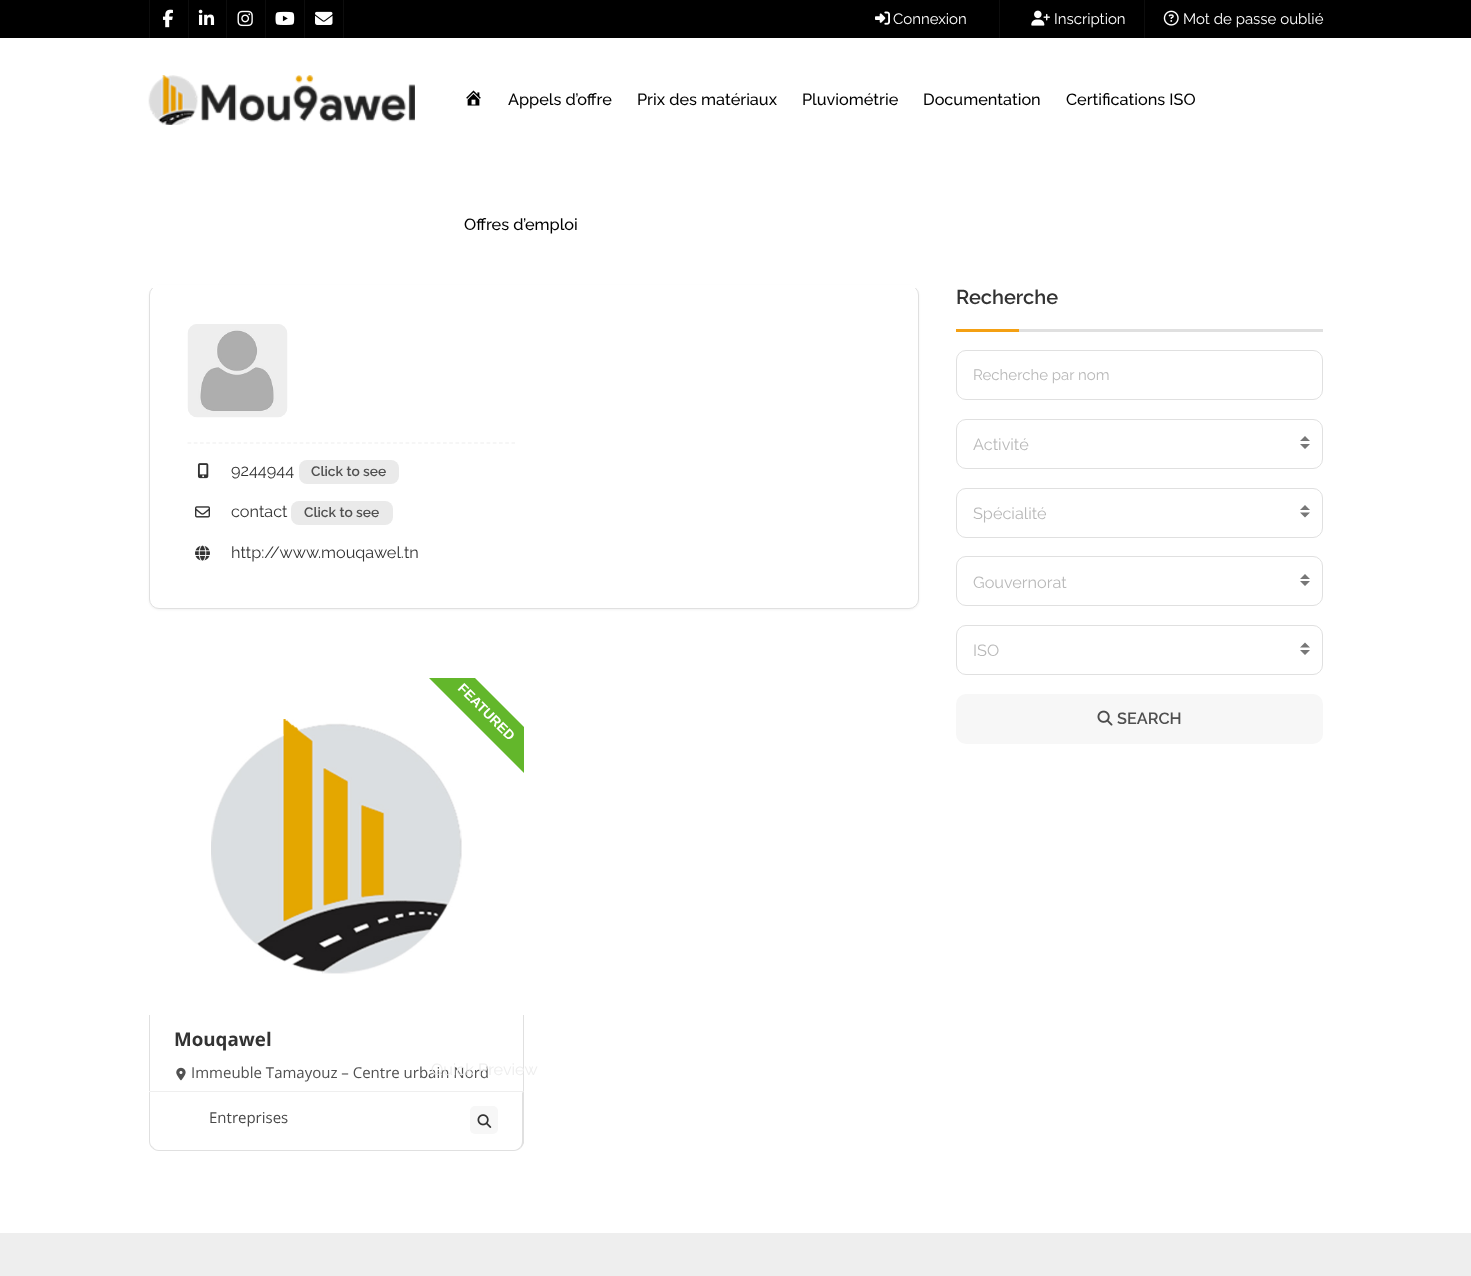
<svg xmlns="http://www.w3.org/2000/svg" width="1471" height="1276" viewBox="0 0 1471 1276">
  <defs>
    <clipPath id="clip1"><rect x="418" y="678" width="106" height="110"/></clipPath>
  </defs>
  <rect width="100%" height="100%" fill="rgb(255,255,255)"/>
  <rect x="149" y="286" width="770" height="324" rx="10" fill="rgba(0,0,0,0.05)" filter="blur(1px)"/>
  <rect x="149.5" y="285.5" width="769" height="323" rx="9.5" fill="rgb(255,255,255)" stroke="rgb(224,224,224)"/>
  <rect x="152" y="285" width="764" height="3" fill="rgb(255,255,255)"/>
  <rect x="0" y="0" width="1471" height="38" fill="rgb(0,0,0)"/>
  <rect x="188" y="0" width="1" height="38" fill="rgb(13,13,13)"/>
  <rect x="149" y="0" width="1" height="38" fill="rgb(13,13,13)"/>
  <image x="162" y="9" width="11" height="19" href="pic1.png"/>
  <rect x="226" y="0" width="1" height="38" fill="rgb(13,13,13)"/>
  <image x="198" y="9" width="17" height="16" href="pic2.png"/>
  <rect x="265" y="0" width="1" height="38" fill="rgb(13,13,13)"/>
  <image x="237" y="10" width="16" height="17" href="pic3.png"/>
  <rect x="304" y="0" width="1" height="38" fill="rgb(13,13,13)"/>
  <image x="275" y="11" width="20" height="14" href="pic4.png"/>
  <rect x="343" y="0" width="1" height="38" fill="rgb(13,13,13)"/>
  <image x="315" y="11" width="18" height="14" href="pic5.png"/>
  <rect x="999" y="0" width="1" height="38" fill="rgb(13,13,13)"/>
  <image x="875" y="11" width="15" height="14" href="pic6.png"/>
  <text x="893" y="24" font-family="Raleway" font-size="15" fill="rgb(255,255,255)">Connexion</text>
  <rect x="1144" y="0" width="1" height="38" fill="rgb(13,13,13)"/>
  <image x="1031" y="10" width="19" height="16" href="pic7.png"/>
  <text x="1054" y="24" font-family="Raleway" font-size="15" fill="rgb(255,255,255)">Inscription</text>
  <image x="1163" y="10" width="16" height="16" href="pic8.png"/>
  <text x="1183" y="24" font-family="Raleway" font-size="15" fill="rgb(255,255,255)">Mot de passe oublié</text>
  <image x="148" y="75" width="267" height="50" href="pic9.png"/>
  <image x="466" y="90" width="15" height="16" href="pic10.png"/>
  <g font-family="Raleway" font-size="16.25" font-weight="500" fill="rgb(0,0,0)">
    <text x="508" y="105">Appels d’offre</text>
    <text x="637" y="105">Prix des matériaux</text>
    <text x="802" y="105">Pluviométrie</text>
    <text x="923" y="105">Documentation</text>
    <text x="1066" y="105">Certifications ISO</text>
    <text x="464" y="230">Offres d’emploi</text>
  </g>
  <image x="187" y="324" width="101" height="94" href="pic11.png"/>
  <path d="M187.5 443H515" fill="none" stroke="rgb(238,238,238)" stroke-width="1.2" stroke-dasharray="3.75 2.48"/>
  <image x="197" y="463" width="12" height="16" href="pic12.png"/>
  <text x="231" y="476" font-family="Raleway" font-size="16.25" fill="rgb(51,51,51)">9244944</text>
  <rect x="299" y="460" width="100" height="24" rx="8" fill="rgb(234,234,234)"/>
  <text x="311" y="476" font-family="Raleway" font-size="13.75" font-weight="600" fill="rgb(80,80,80)">Click to see</text>
  <image x="195" y="506" width="15" height="12" href="pic13.png"/>
  <text x="231" y="517" font-family="Raleway" font-size="16.25" fill="rgb(51,51,51)">contact</text>
  <rect x="291" y="501" width="102" height="24" rx="8" fill="rgb(234,234,234)"/>
  <text x="304" y="517" font-family="Raleway" font-size="13.75" font-weight="600" fill="rgb(80,80,80)">Click to see</text>
  <image x="195" y="545" width="15" height="16" href="pic14.png"/>
  <text x="231" y="558" font-family="Raleway" font-size="16.25" fill="rgb(51,51,51)">http://www.mouqawel.tn</text>
  <image x="211" y="719" width="251" height="255" href="pic15.png"/>
  <g clip-path="url(#clip1)">
    <path d="M445 648L551 754L528 777L422 671Z" fill="rgb(99,183,43)"/>
  </g>
  <text x="457" y="689" transform="rotate(45 457 689)" font-family="Liberation Sans" font-size="13.75" font-weight="bold" fill="rgb(255,255,255)">FEATURED</text>
  <rect x="523" y="1015" width="1" height="76" fill="rgb(224,224,224)"/>
  <rect x="149" y="1015" width="1" height="76" fill="rgb(224,224,224)"/>
  <text x="174" y="1046" font-family="Open Sans" font-size="18.75" font-weight="bold" fill="rgb(51,51,51)">Mouqawel</text>
  <image x="176" y="1067" width="10" height="14" href="pic16.png"/>
  <text x="191" y="1078" font-family="Open Sans" font-size="15" fill="rgb(80,80,80)">Immeuble Tamayouz – Centre urbain Nord</text>
  <path d="M150 1092L149 1091H524L522 1093V1092Z" fill="rgb(239,239,239)"/>
  <path d="M524 1091V1143C523 1145 522 1147 521 1148L520 1147C521 1146 522 1144 522 1141V1093Z" fill="rgb(224,224,224)"/>
  <path d="M521 1148C519 1150 516 1151 514 1151H159C156 1151 154 1150 152 1148L153 1147C154 1149 156 1150 159 1150H514C516 1150 518 1149 520 1147Z" fill="rgb(224,224,224)"/>
  <path d="M152 1148C150 1146 149 1144 149 1141V1092H150V1141C150 1144 151 1146 153 1147Z" fill="rgb(224,224,224)"/>
  <rect x="470" y="1106" width="28" height="28" rx="5" fill="rgb(247,247,247)"/>
  <text x="431" y="1075" font-family="Raleway" font-size="16.25" fill="rgb(237,237,237)">Quick Preview</text>
  <image x="477" y="1114" width="15" height="14" href="pic17.png"/>
  <text x="209" y="1123" font-family="Open Sans" font-size="15" fill="rgb(73,73,73)">Entreprises</text>
  <rect x="1019" y="329" width="304" height="3" fill="rgb(224,224,224)"/>
  <text x="956" y="304" font-family="Raleway" font-size="20" font-weight="600" fill="rgb(51,51,51)">Recherche</text>
  <rect x="956" y="329" width="63" height="3" fill="rgb(244,160,19)"/>
  <rect x="956.5" y="350.5" width="366" height="49" rx="9.5" fill="none" stroke="rgb(224,224,224)"/>
  <text x="973" y="380" font-family="Raleway" font-size="15" fill="rgb(185,185,185)">Recherche par nom</text>
  <rect x="956.5" y="419.5" width="366" height="49" rx="9.5" fill="none" stroke="rgb(224,224,224)"/>
  <text x="973" y="450" font-family="Raleway" font-size="16.25" fill="rgb(185,185,185)">Activité</text>
  <path d="M1310 441H1300L1305 436ZM1300 444H1310L1305 449Z" fill="rgb(119,119,119)"/>
  <rect x="956.5" y="488.5" width="366" height="49" rx="9.5" fill="none" stroke="rgb(224,224,224)"/>
  <text x="973" y="519" font-family="Raleway" font-size="16.25" fill="rgb(185,185,185)">Spécialité</text>
  <path d="M1310 510H1300L1305 505ZM1300 512.5H1310L1305 517.5Z" fill="rgb(119,119,119)"/>
  <rect x="956.5" y="556.5" width="366" height="49" rx="9.5" fill="none" stroke="rgb(224,224,224)"/>
  <text x="973" y="588" font-family="Raleway" font-size="16.25" fill="rgb(185,185,185)">Gouvernorat</text>
  <path d="M1310 579H1300L1305 574ZM1300 581H1310L1305 586Z" fill="rgb(119,119,119)"/>
  <rect x="956.5" y="625.5" width="366" height="49" rx="9.5" fill="none" stroke="rgb(224,224,224)"/>
  <text x="973" y="656" font-family="Raleway" font-size="16.25" fill="rgb(185,185,185)">ISO</text>
  <path d="M1310 647.5H1300L1305 642.5ZM1300 650H1310L1305 655Z" fill="rgb(119,119,119)"/>
  <rect x="956" y="694" width="367" height="50" rx="10" fill="rgb(247,247,247)"/>
  <image x="1097" y="710" width="16" height="16" href="pic18.png"/>
  <text x="1117" y="724" font-family="Raleway" font-size="16.25" font-weight="600" fill="rgb(80,80,80)">SEARCH</text>
  <rect x="0" y="1233" width="1471" height="43" fill="rgb(238,238,238)"/>
</svg>
